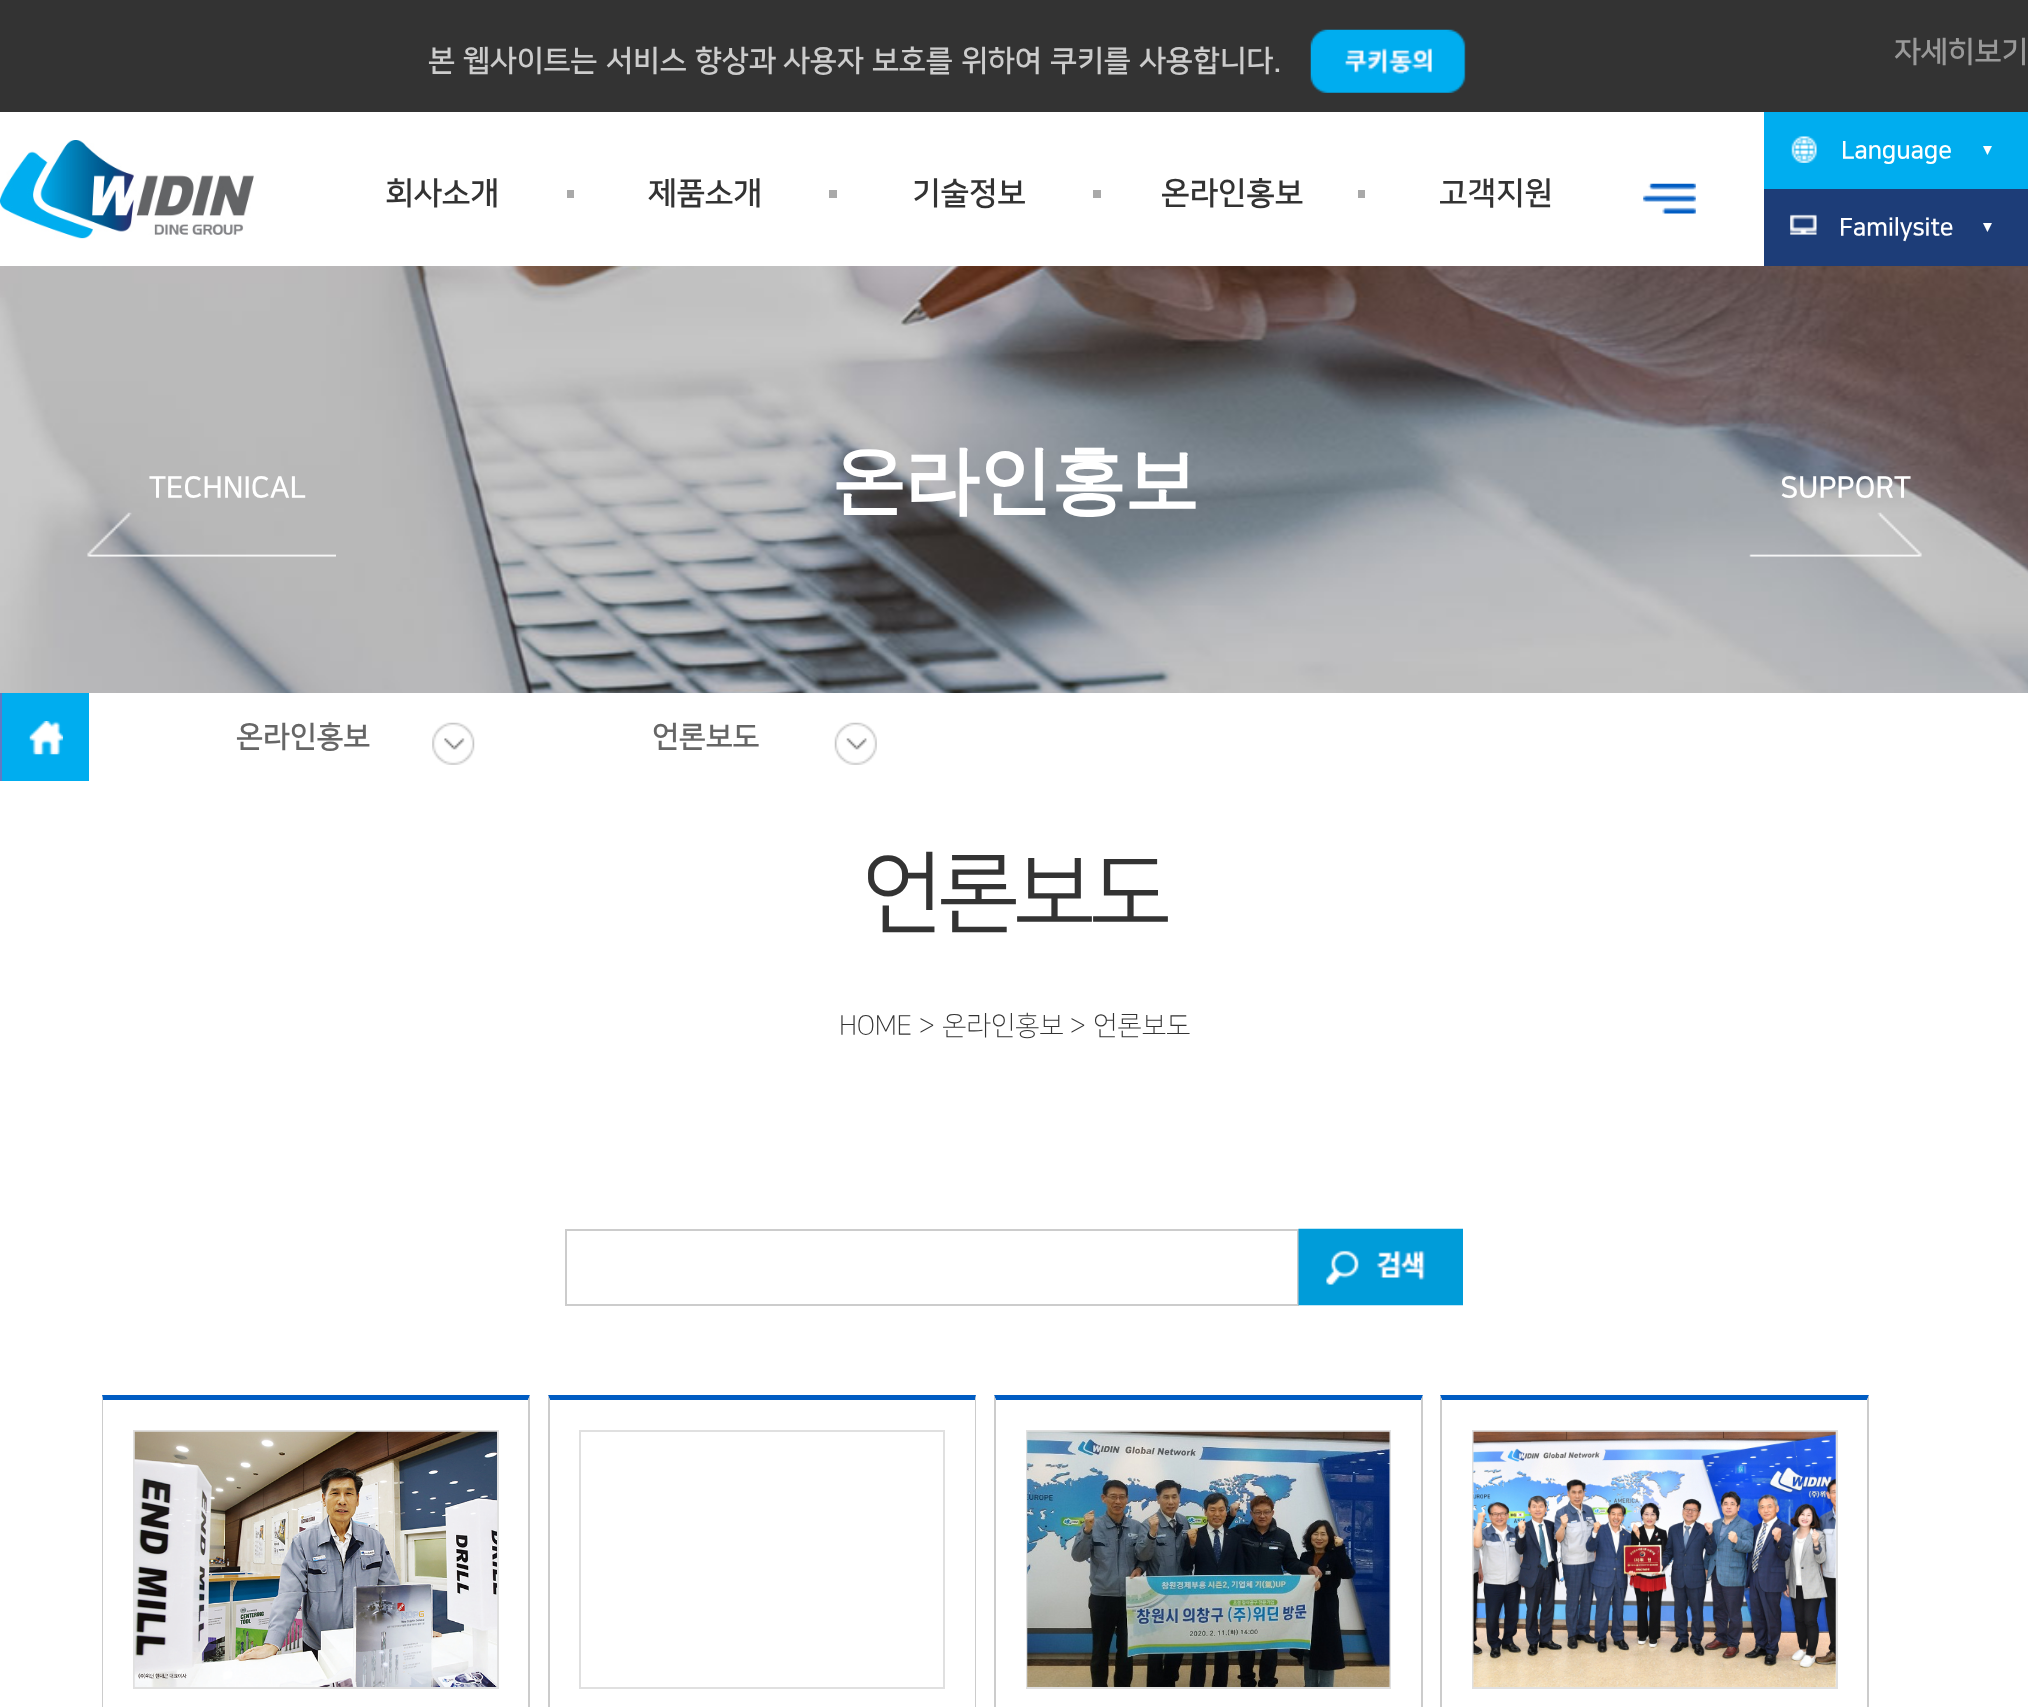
<svg xmlns="http://www.w3.org/2000/svg" width="2028" height="1707" viewBox="0 0 2028 1707">
  <rect width="100%" height="100%" fill="rgb(255,255,255)"/>
  <rect x="0" y="0" width="2028" height="112" fill="rgb(51,51,51)"/>
  <g font-family="'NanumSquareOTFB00'" font-size="29.75" font-weight="bold" letter-spacing="-0.25" fill="rgb(204,204,204)">
    <text x="428" y="70">본</text>
    <text x="463" y="70">웹사이트는</text>
    <text x="606" y="70">서비스</text>
    <text x="695" y="70">향상과</text>
    <text x="783" y="70">사용자</text>
    <text x="872" y="70">보호를</text>
    <text x="961" y="70">위하여</text>
    <text x="1050" y="70">쿠키를</text>
    <text x="1139" y="70">사용합니다.</text>
  </g>
  <image x="1310" y="29" width="156" height="64" href="pic1.png"/>
  <text x="1894" y="61" font-family="'NanumSquareOTFB00'" font-size="29.75" font-weight="bold" letter-spacing="-0.25" fill="rgb(153,153,153)">자세히보기</text>
  <image x="0" y="140" width="254" height="99" href="pic2.png"/>
  <rect x="1764" y="112" width="264" height="77" fill="rgb(0,173,239)"/>
  <image x="1791" y="136" width="26" height="27" href="pic3.png"/>
  <text x="1841" y="158" font-family="'NanumSquareOTFB00'" font-size="24.5" font-weight="bold" letter-spacing="-0.25" fill="rgb(255,255,255)">Language</text>
  <text x="1982" y="154" font-family="'NanumSquareOTFB00'" font-size="12" font-weight="bold" letter-spacing="-0.25" fill="rgb(255,255,255)">▼</text>
  <rect x="567" y="190" width="7" height="8" fill="rgb(169,169,169)"/>
  <text x="385" y="203" font-family="'NanumSquareOTFB00'" font-size="31.5" font-weight="bold" letter-spacing="-0.25" fill="rgb(51,51,51)">회사소개</text>
  <rect x="829" y="190" width="8" height="8" fill="rgb(169,169,169)"/>
  <text x="648" y="203" font-family="'NanumSquareOTFB00'" font-size="31.5" font-weight="bold" letter-spacing="-0.25" fill="rgb(51,51,51)">제품소개</text>
  <rect x="1093" y="190" width="8" height="8" fill="rgb(169,169,169)"/>
  <text x="912" y="203" font-family="'NanumSquareOTFB00'" font-size="31.5" font-weight="bold" letter-spacing="-0.25" fill="rgb(51,51,51)">기술정보</text>
  <rect x="1358" y="190" width="7" height="8" fill="rgb(169,169,169)"/>
  <g font-family="'NanumSquareOTFB00'" font-size="31.5" font-weight="bold" letter-spacing="-0.25" fill="rgb(51,51,51)">
    <text x="1161" y="203">온라인홍보</text>
    <text x="1439" y="203">고객지원</text>
  </g>
  <image x="1643" y="183" width="53" height="31" href="pic4.png"/>
  <rect x="1764" y="189" width="264" height="77" fill="rgb(29,61,120)"/>
  <image x="1790" y="214" width="27" height="21" href="pic5.png"/>
  <text x="1839" y="235" font-family="'NanumSquareOTFB00'" font-size="24.5" font-weight="bold" letter-spacing="-0.25" fill="rgb(255,255,255)">Familysite</text>
  <text x="1982" y="231" font-family="'NanumSquareOTFB00'" font-size="12" font-weight="bold" letter-spacing="-0.25" fill="rgb(255,255,255)">▼</text>
  <image x="0" y="266" width="2028" height="427" href="pic6.png"/>
  <text x="831" y="506" font-family="WenQuanYi Zen Hei" font-size="75" font-weight="bold" letter-spacing="-1.75" fill="rgb(255,255,255)">온라인홍보</text>
  <text x="149" y="497" font-family="'NanumSquareOTFB00'" font-size="29.75" font-weight="bold" letter-spacing="-0.25" fill="rgb(255,255,255)">TECHNICAL</text>
  <image x="87" y="512" width="249" height="45" href="pic7.png"/>
  <text x="1780" y="497" font-family="'NanumSquareOTFB00'" font-size="29.75" font-weight="bold" letter-spacing="-0.25" fill="rgb(255,255,255)">SUPPORT</text>
  <image x="1749" y="512" width="173" height="45" href="pic8.png"/>
  <rect x="0" y="693" width="2" height="88" fill="rgb(96,122,196)"/>
  <rect x="2" y="693" width="87" height="88" fill="rgb(0,173,239)"/>
  <image x="29" y="721" width="34" height="34" href="pic9.png"/>
  <image x="432" y="722" width="43" height="43" href="pic10.png"/>
  <text x="236" y="746" font-family="'NanumSquareOTFB00'" font-size="29.75" font-weight="bold" letter-spacing="-0.25" fill="rgb(102,102,102)">온라인홍보</text>
  <image x="834" y="722" width="43" height="43" href="pic11.png"/>
  <text x="652" y="746" font-family="'NanumSquareOTFB00'" font-size="29.75" font-weight="bold" letter-spacing="-0.25" fill="rgb(102,102,102)">언론보도</text>
  <text x="862" y="921" font-family="'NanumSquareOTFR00'" font-size="89" letter-spacing="-5" fill="rgb(51,51,51)">언론보도</text>
  <g font-family="'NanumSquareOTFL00'" font-size="27" font-weight="200" letter-spacing="-0.25" fill="rgb(51,51,51)">
    <text x="839" y="1034">HOME</text>
    <text x="919" y="1034">&gt;</text>
    <text x="942" y="1034">온라인홍보</text>
    <text x="1070" y="1034">&gt;</text>
    <text x="1093" y="1034">언론보도</text>
  </g>
  <rect x="566" y="1230" width="732" height="75" fill="none" stroke="rgb(204,204,204)" stroke-width="2"/>
  <image x="1298" y="1228" width="165" height="78" href="pic12.png"/>
  <path d="M102 1395H530L528 1400H103Z" fill="rgb(0,92,195)"/>
  <path d="M530 1395V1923L528 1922V1400Z" fill="rgb(204,204,204)"/>
  <path d="M102 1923V1395L103 1400V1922Z" fill="rgb(204,204,204)"/>
  <rect x="134" y="1431" width="364" height="257" fill="none" stroke="rgb(224,224,224)" stroke-width="2"/>
  <image x="134" y="1431" width="363" height="256" href="pic13.png"/>
  <path d="M548 1395H976L975 1400H550Z" fill="rgb(0,92,195)"/>
  <path d="M976 1395V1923L975 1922V1400Z" fill="rgb(204,204,204)"/>
  <path d="M548 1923V1395L550 1400V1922Z" fill="rgb(204,204,204)"/>
  <rect x="580" y="1431" width="364" height="257" fill="none" stroke="rgb(224,224,224)" stroke-width="2"/>
  <path d="M994 1395H1423L1421 1400H996Z" fill="rgb(0,92,195)"/>
  <path d="M1423 1395V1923L1421 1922V1400Z" fill="rgb(204,204,204)"/>
  <path d="M994 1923V1395L996 1400V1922Z" fill="rgb(204,204,204)"/>
  <rect x="1027" y="1431" width="363" height="257" fill="none" stroke="rgb(224,224,224)" stroke-width="2"/>
  <image x="1027" y="1431" width="363" height="256" href="pic14.png"/>
  <path d="M1440 1395H1869L1867 1400H1442Z" fill="rgb(0,92,195)"/>
  <path d="M1869 1395V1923L1867 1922V1400Z" fill="rgb(204,204,204)"/>
  <path d="M1440 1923V1395L1442 1400V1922Z" fill="rgb(204,204,204)"/>
  <rect x="1473" y="1431" width="364" height="257" fill="none" stroke="rgb(224,224,224)" stroke-width="2"/>
  <image x="1473" y="1431" width="363" height="256" href="pic15.png"/>
</svg>
